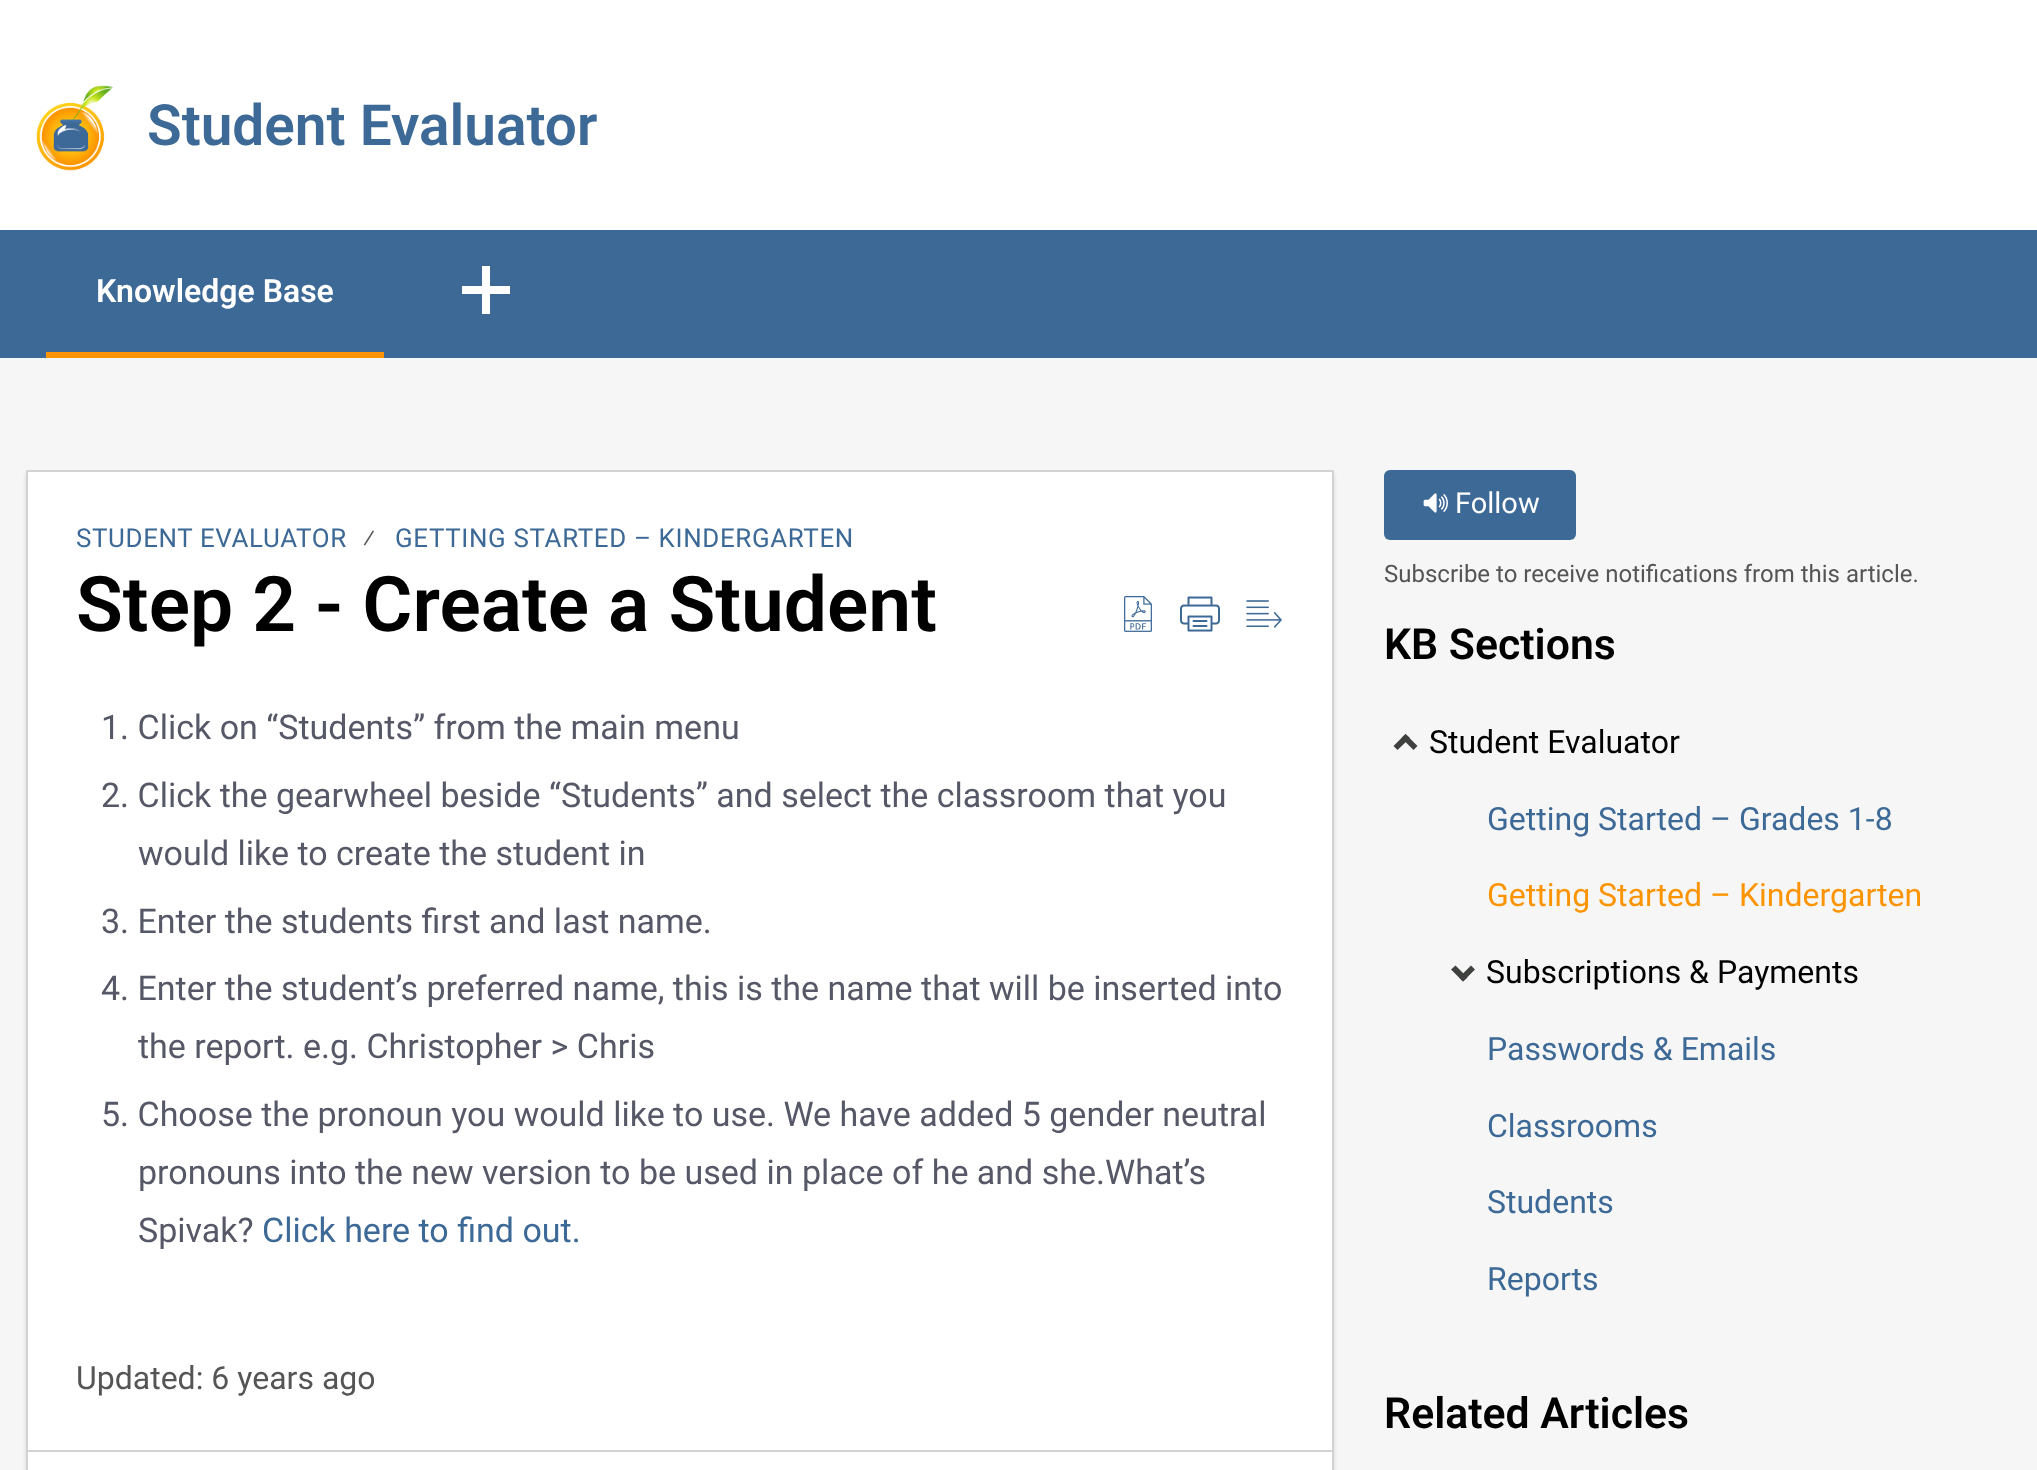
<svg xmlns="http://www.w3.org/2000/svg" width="2037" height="1470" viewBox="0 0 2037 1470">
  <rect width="100%" height="100%" fill="rgb(246,246,246)"/>
  <rect x="0" y="0" width="2037" height="230" fill="rgb(255,255,255)"/>
  <image x="36" y="85" width="78" height="86" href="pic1.png"/>
  <text x="147" y="145" font-family="Roboto" font-size="56.75" font-weight="600" fill="rgb(61,105,151)">Student Evaluator</text>
  <rect x="0" y="230" width="2037" height="128" fill="rgb(61,105,151)"/>
  <rect x="46" y="352" width="338" height="6" fill="rgb(252,148,1)"/>
  <text x="96" y="302" font-family="Roboto" font-size="32" font-weight="600" fill="rgb(255,255,255)">Knowledge Base</text>
  <path d="M510 294H490V314H482V294H462V286H482V266H490V286H510Z" fill="rgb(255,255,255)"/>
  <rect x="26" y="474" width="1308" height="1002" fill="rgba(32,35,32,0.15)" filter="blur(2px)"/>
  <rect x="28" y="472" width="1304" height="998" fill="rgb(255,255,255)"/>
  <rect x="26" y="470" width="1308" height="2" fill="rgb(210,211,210)"/>
  <rect x="1332" y="470" width="2" height="1000" fill="rgb(210,211,210)"/>
  <rect x="26" y="470" width="2" height="1000" fill="rgb(210,211,210)"/>
  <text x="76" y="547" font-family="Roboto" font-size="25.9" letter-spacing="0.65" fill="rgb(61,105,151)">STUDENT EVALUATOR</text>
  <text x="363" y="547" font-family="Roboto" font-size="25.9" letter-spacing="0.65" fill="rgb(85,85,85)">⁄</text>
  <text x="395" y="547" font-family="Roboto" font-size="25.9" letter-spacing="0.65" fill="rgb(61,105,151)">GETTING STARTED – KINDERGARTEN</text>
  <text x="76" y="631" font-family="Roboto" font-size="76.75" font-weight="600" fill="rgb(0,0,0)">Step 2 - Create a Student</text>
  <image x="1124" y="596" width="28" height="36" href="pic2.png"/>
  <image x="1180" y="596" width="40" height="36" href="pic3.png"/>
  <image x="1246" y="600" width="36" height="28" href="pic4.png"/>
  <g font-family="Roboto" font-size="34" fill="rgb(86,88,103)">
    <text x="101" y="739">1. Click on “Students” from the main menu</text>
    <text x="101" y="807">2. Click the gearwheel beside “Students” and select the classroom that you</text>
    <text x="138" y="865">would like to create the student in</text>
    <text>
      <tspan x="101" y="933">3. Enter the students first and last name.</tspan>
      <tspan x="101" y="1000">4. Enter the student’s preferred name, this is the name that will be inserted into</tspan>
    </text>
    <text x="138" y="1058">the report. e.g. Christopher &gt; Chris</text>
    <text x="101" y="1126">5. Choose the pronoun you would like to use. We have added 5 gender neutral</text>
    <text>
      <tspan x="138" y="1184">pronouns into the new version to be used in place of he and she.What’s</tspan>
      <tspan x="138" y="1242">Spivak?</tspan>
    </text>
  </g>
  <text x="262" y="1242" font-family="Roboto" font-size="34" fill="rgb(61,105,151)">Click here to find out.</text>
  <text x="76" y="1389" font-family="Roboto" font-size="32" fill="rgb(85,85,85)">Updated: 6 years ago</text>
  <rect x="28" y="1450" width="1304" height="2" fill="rgb(210,211,210)"/>
  <rect x="1384" y="470" width="192" height="70" rx="6" fill="rgb(61,105,151)"/>
  <image x="1423" y="493" width="25" height="20" href="pic5.png"/>
  <text x="1455" y="513" font-family="Roboto" font-size="29" fill="rgb(255,255,255)">Follow</text>
  <text x="1384" y="582" font-family="Roboto" font-size="24" fill="rgb(85,85,85)">Subscribe to receive notifications from this article.</text>
  <text x="1384" y="659" font-family="Roboto" font-size="42.75" font-weight="600" fill="rgb(0,0,0)">KB Sections</text>
  <path d="M1410 738L1397.5 750L1393.5 746L1405.5 734Z" fill="rgb(62,65,62)"/>
  <path d="M1417.5 746L1413.5 750L1401.5 738L1405.5 734Z" fill="rgb(62,65,62)"/>
  <text x="1429" y="753" font-family="Roboto" font-size="32" fill="rgb(0,0,0)">Student Evaluator</text>
  <text x="1487" y="830" font-family="Roboto" font-size="32" fill="rgb(61,105,151)">Getting Started – Grades 1-8</text>
  <text x="1487" y="906" font-family="Roboto" font-size="32" fill="rgb(252,148,1)">Getting Started – Kindergarten</text>
  <path d="M1459 977.5L1471 965.5L1475 969.5L1463 981.5Z" fill="rgb(62,65,62)"/>
  <path d="M1451 969.5L1455.5 965.5L1467.5 977.5L1463 981.5Z" fill="rgb(62,65,62)"/>
  <text x="1486" y="983" font-family="Roboto" font-size="32" fill="rgb(0,0,0)">Subscriptions &amp; Payments</text>
  <g font-family="Roboto" font-size="32" fill="rgb(61,105,151)">
    <text x="1487" y="1060">Passwords &amp; Emails</text>
    <text x="1487" y="1137">Classrooms</text>
    <text x="1487" y="1213">Students</text>
    <text x="1487" y="1290">Reports</text>
  </g>
  <text x="1384" y="1428" font-family="Roboto" font-size="42.75" font-weight="600" fill="rgb(0,0,0)">Related Articles</text>
</svg>
